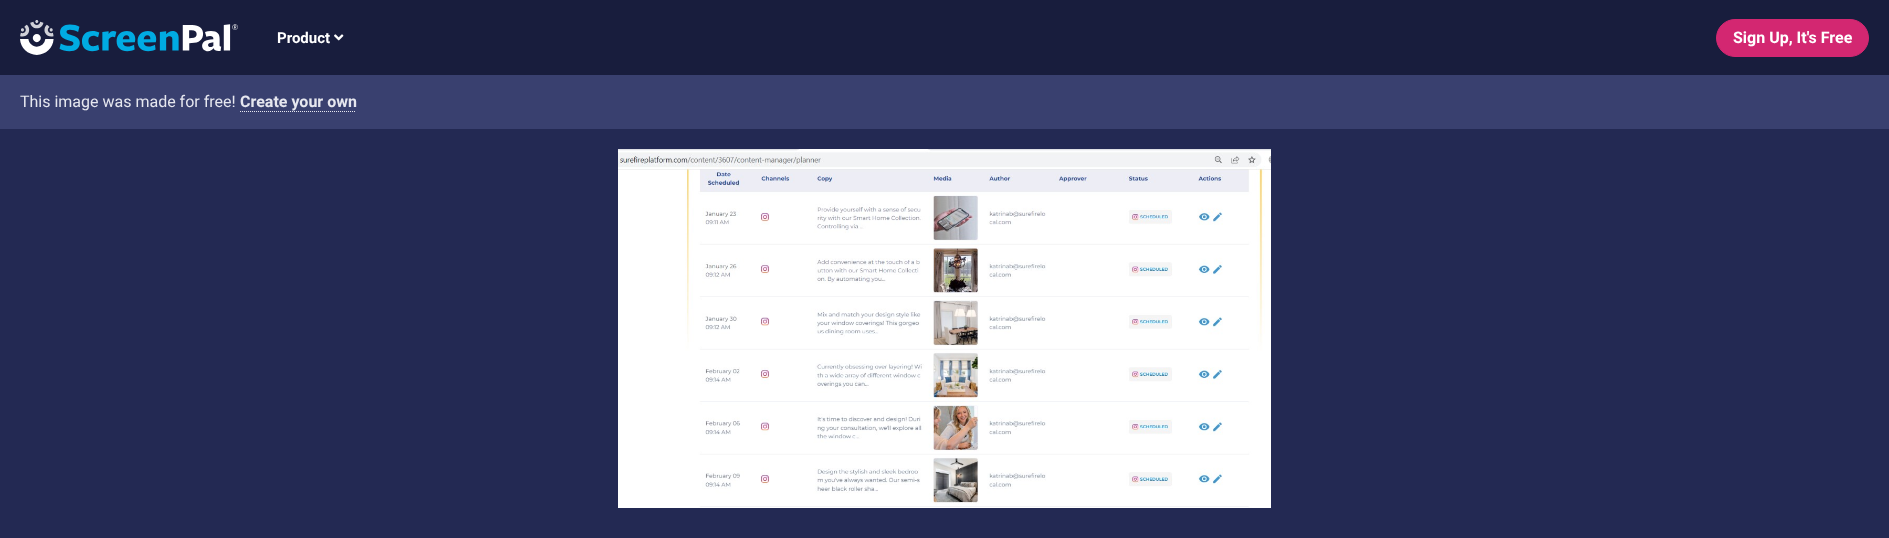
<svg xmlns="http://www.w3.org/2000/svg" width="1889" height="538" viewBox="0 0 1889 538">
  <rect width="100%" height="100%" fill="rgb(35,41,83)"/>
  <rect x="0" y="0" width="1889" height="75" fill="rgb(24,29,61)"/>
  <image x="20" y="20" width="218" height="35" href="pic1.png"/>
  <text x="277" y="43" font-family="Roboto" font-size="15" font-weight="bold" fill="rgb(255,255,255)">Product</text>
  <image x="334" y="34" width="10" height="7" href="pic2.png"/>
  <rect x="1716.5" y="19.5" width="152" height="37" rx="18.5" fill="rgb(211,39,113)" stroke="rgb(211,39,113)"/>
  <text x="1733" y="43" font-family="Roboto" font-size="16" font-weight="bold" fill="rgb(255,255,255)">Sign Up, It's Free</text>
  <rect x="0" y="75" width="1889" height="54" fill="rgb(57,64,111)"/>
  <text x="20" y="107" font-family="Roboto" font-size="16" fill="rgb(230,231,239)">This image was made for free!</text>
  <text x="240" y="107" font-family="Roboto" font-size="16" font-weight="bold" fill="rgb(230,231,239)">Create your own</text>
  <path d="M240 111.5H356" fill="none" stroke="rgb(230,231,239)" stroke-dasharray="1 1"/>
  <image x="618" y="149" width="653" height="359" href="pic3.png"/>
</svg>
